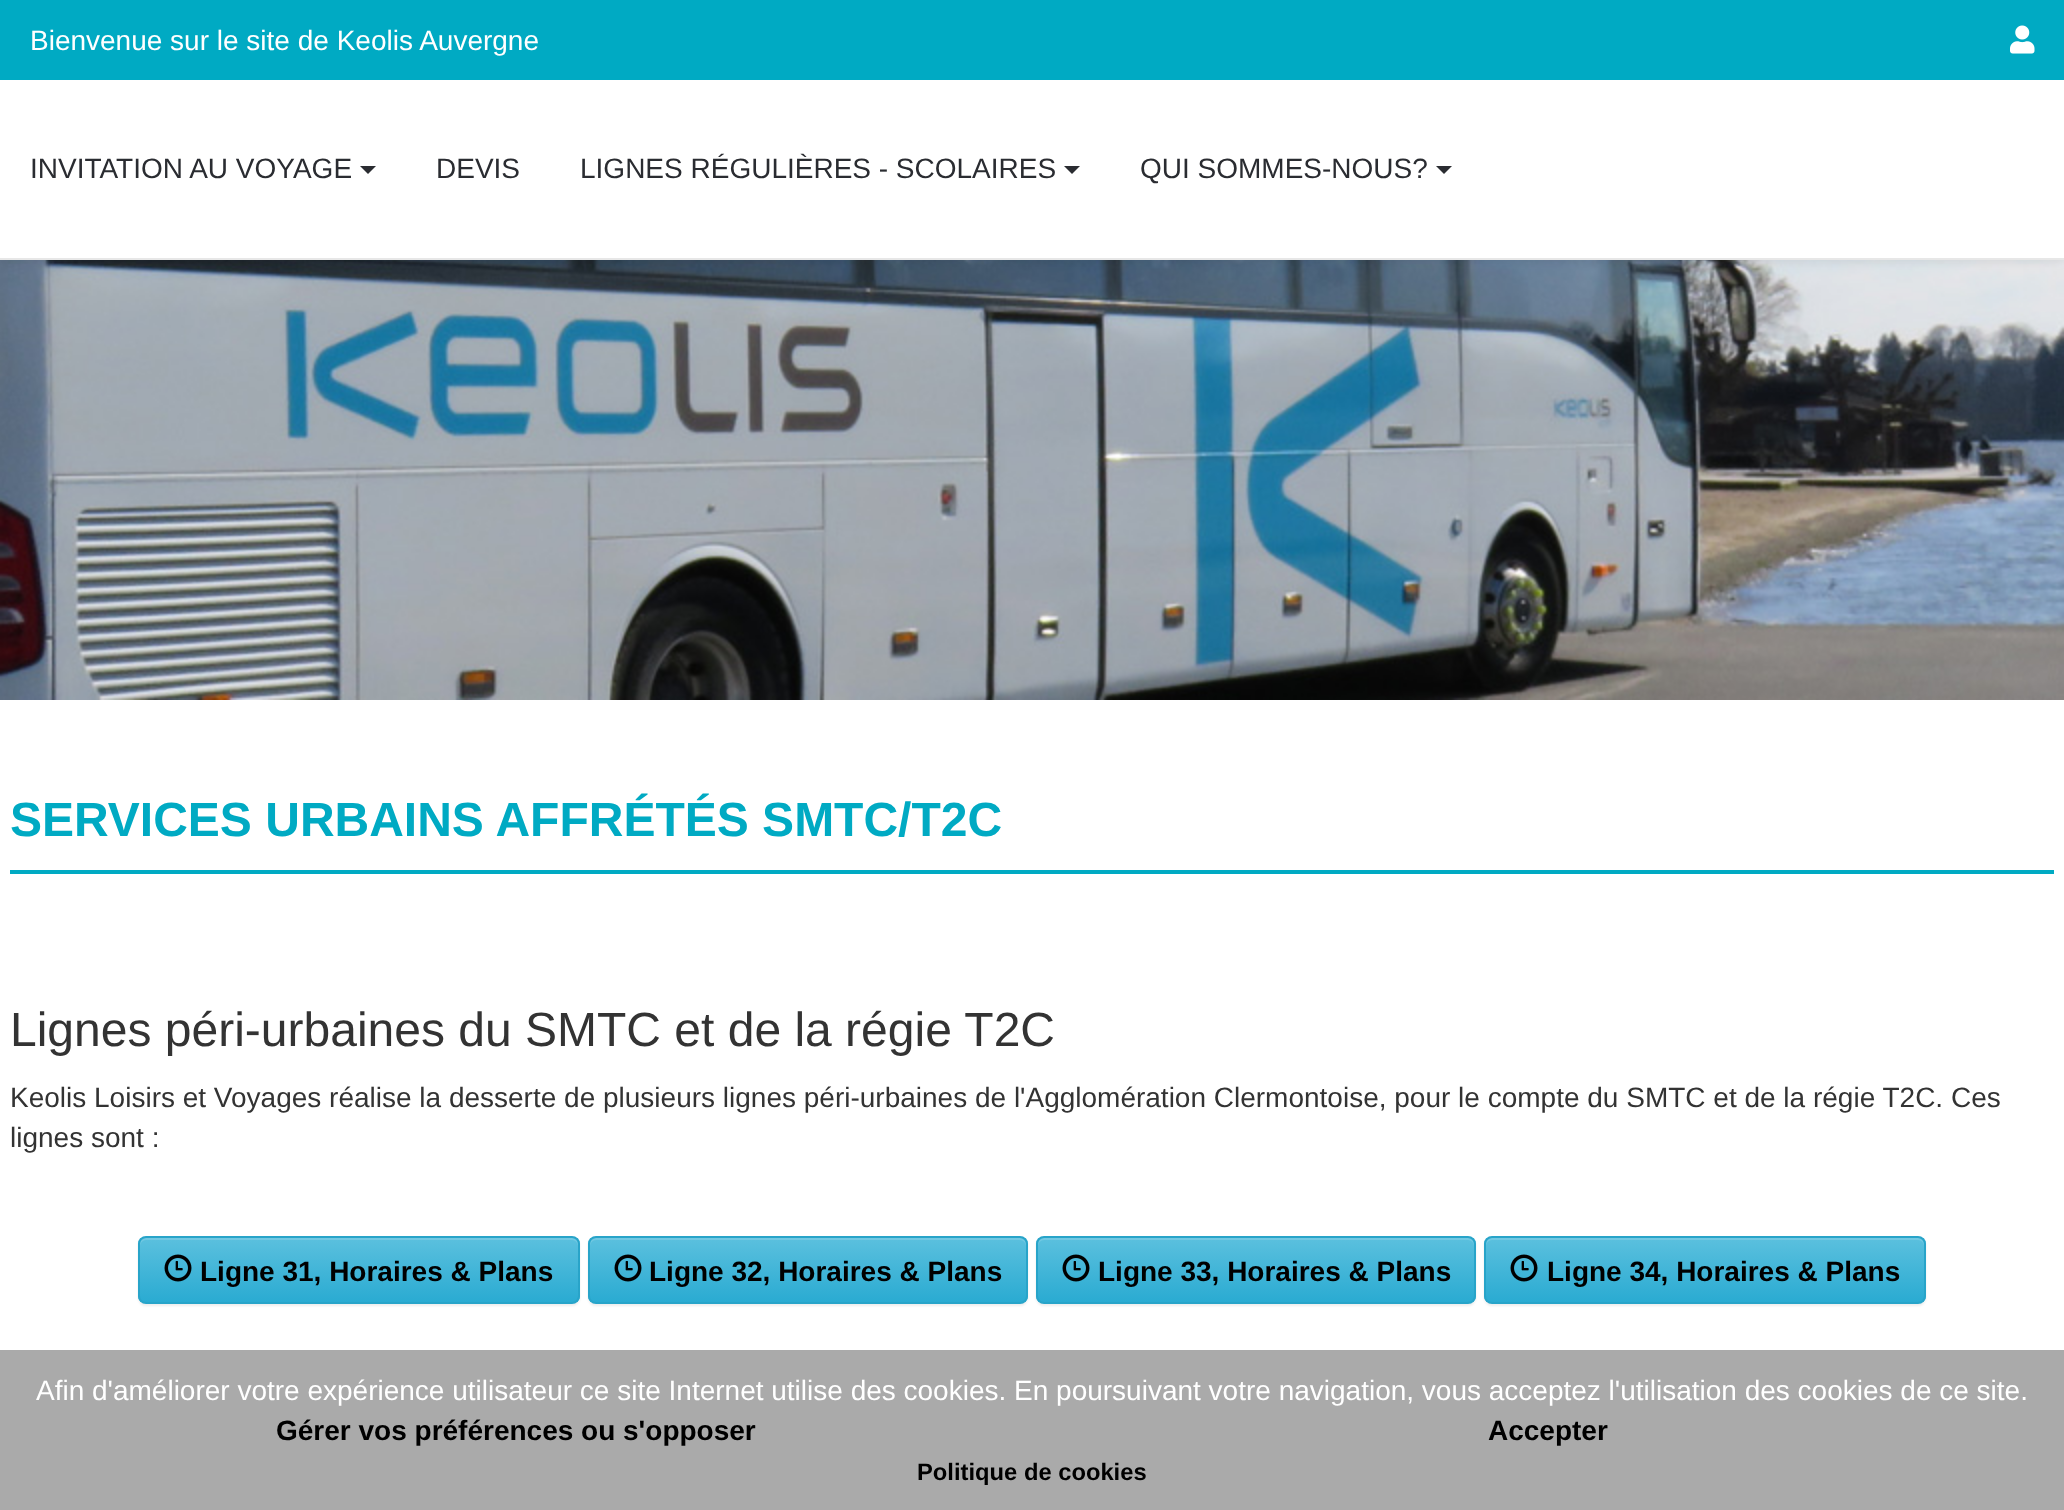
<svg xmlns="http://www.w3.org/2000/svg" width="2064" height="1510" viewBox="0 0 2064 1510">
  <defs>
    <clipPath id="clip1"><rect x="138" y="1236" width="442" height="68" rx="8"/></clipPath>
    <linearGradient id="g1" gradientUnits="userSpaceOnUse" x1="359" y1="1238" x2="359" y2="1302"><stop offset="0" stop-color="rgb(91,192,222)"/><stop offset="1" stop-color="rgb(42,171,210)"/></linearGradient>
    <clipPath id="clip2"><rect x="588" y="1236" width="440" height="68" rx="8"/></clipPath>
    <linearGradient id="g2" gradientUnits="userSpaceOnUse" x1="808" y1="1238" x2="808" y2="1302"><stop offset="0" stop-color="rgb(91,192,222)"/><stop offset="1" stop-color="rgb(42,171,210)"/></linearGradient>
    <clipPath id="clip3"><rect x="1036" y="1236" width="440" height="68" rx="8"/></clipPath>
    <linearGradient id="g3" gradientUnits="userSpaceOnUse" x1="1256" y1="1238" x2="1256" y2="1302"><stop offset="0" stop-color="rgb(91,192,222)"/><stop offset="1" stop-color="rgb(42,171,210)"/></linearGradient>
    <clipPath id="clip4"><rect x="1484" y="1236" width="442" height="68" rx="8"/></clipPath>
    <linearGradient id="g4" gradientUnits="userSpaceOnUse" x1="1705" y1="1238" x2="1705" y2="1302"><stop offset="0" stop-color="rgb(91,192,222)"/><stop offset="1" stop-color="rgb(42,171,210)"/></linearGradient>
  </defs>
  <rect width="100%" height="100%" fill="rgb(255,255,255)"/>
  <image x="0" y="260" width="2064" height="440" href="pic2.png"/>
  <rect x="0" y="2" width="2064" height="260" fill="rgba(0,0,0,0.07)" filter="blur(5px)"/>
  <rect x="0" y="80" width="2064" height="178" fill="rgb(255,255,255)"/>
  <rect x="0" y="258" width="2064" height="2" fill="rgb(231,231,231)"/>
  <rect x="0" y="0" width="2064" height="80" fill="rgb(0,170,195)"/>
  <text x="30" y="50" font-family="Liberation Sans" font-size="28" fill="rgb(255,255,255)">Bienvenue sur le site de Keolis Auvergne</text>
  <image x="2010" y="25" width="25" height="29" href="pic1.png"/>
  <text x="30" y="178" font-family="Liberation Sans" font-size="28" fill="rgb(42,44,49)">INVITATION AU VOYAGE</text>
  <path d="M360 166H376L368 174Z" fill="rgb(42,44,49)"/>
  <g font-family="Liberation Sans" font-size="28" fill="rgb(42,44,49)">
    <text x="436" y="178">DEVIS</text>
    <text x="580" y="178">LIGNES RÉGULIÈRES - SCOLAIRES</text>
  </g>
  <path d="M1064 166H1080L1072 174Z" fill="rgb(42,44,49)"/>
  <text x="1140" y="178" font-family="Liberation Sans" font-size="28" fill="rgb(42,44,49)">QUI SOMMES-NOUS?</text>
  <path d="M1436 166H1452L1444 174Z" fill="rgb(42,44,49)"/>
  <rect x="10" y="870" width="2044" height="4" fill="rgb(0,170,195)"/>
  <text x="10" y="836" font-family="Liberation Sans" font-size="48" font-weight="bold" fill="rgb(0,170,195)">SERVICES URBAINS AFFRÉTÉS SMTC/T2C</text>
  <text x="10" y="1046" font-family="Liberation Sans" font-size="48" fill="rgb(51,51,51)">Lignes péri-urbaines du SMTC et de la régie T2C</text>
  <g font-family="Liberation Sans" font-size="28" fill="rgb(51,51,51)">
    <text>
      <tspan x="10" y="1107">Keolis Loisirs et Voyages réalise la desserte de plusieurs lignes péri-urbaines de l'Agglomération Clermontoise, pour le compte du SMTC et de la régie T2C. Ces</tspan>
      <tspan x="10" y="1147">lignes sont :</tspan>
    </text>
  </g>
  <rect x="138" y="1238" width="442" height="68" rx="8" fill="rgba(0,0,0,0.07)" filter="blur(1px)"/>
  <g clip-path="url(#clip1)">
    <rect x="138" y="1238" width="442" height="64" fill="url(#g1)"/>
  </g>
  <path d="M146 1240H572C575 1240 578 1243 578 1246V1244C578 1241 575 1238 572 1238H146C143 1238 140 1241 140 1244V1246C140 1243 143 1240 146 1240Z" fill="rgba(255,255,255,0.15)"/>
  <rect x="139" y="1237" width="440" height="66" rx="7" fill="none" stroke="rgb(40,164,201)" stroke-width="2"/>
  <image x="164" y="1254" width="28" height="28" href="pic3.png"/>
  <text x="200" y="1281" font-family="Liberation Sans" font-size="28" font-weight="bold" fill="rgb(0,0,0)">Ligne 31, Horaires &amp; Plans</text>
  <rect x="588" y="1238" width="440" height="68" rx="8" fill="rgba(0,0,0,0.07)" filter="blur(1px)"/>
  <g clip-path="url(#clip2)">
    <rect x="588" y="1238" width="440" height="64" fill="url(#g2)"/>
  </g>
  <path d="M596 1240H1020C1023 1240 1026 1243 1026 1246V1244C1026 1241 1023 1238 1020 1238H596C593 1238 590 1241 590 1244V1246C590 1243 593 1240 596 1240Z" fill="rgba(255,255,255,0.15)"/>
  <rect x="589" y="1237" width="438" height="66" rx="7" fill="none" stroke="rgb(40,164,201)" stroke-width="2"/>
  <image x="614" y="1254" width="28" height="28" href="pic3.png"/>
  <text x="649" y="1281" font-family="Liberation Sans" font-size="28" font-weight="bold" fill="rgb(0,0,0)">Ligne 32, Horaires &amp; Plans</text>
  <rect x="1036" y="1238" width="440" height="68" rx="8" fill="rgba(0,0,0,0.07)" filter="blur(1px)"/>
  <g clip-path="url(#clip3)">
    <rect x="1036" y="1238" width="440" height="64" fill="url(#g3)"/>
  </g>
  <path d="M1044 1240H1468C1471 1240 1474 1243 1474 1246V1244C1474 1241 1471 1238 1468 1238H1044C1041 1238 1038 1241 1038 1244V1246C1038 1243 1041 1240 1044 1240Z" fill="rgba(255,255,255,0.15)"/>
  <rect x="1037" y="1237" width="438" height="66" rx="7" fill="none" stroke="rgb(40,164,201)" stroke-width="2"/>
  <image x="1062" y="1254" width="28" height="28" href="pic3.png"/>
  <text x="1098" y="1281" font-family="Liberation Sans" font-size="28" font-weight="bold" fill="rgb(0,0,0)">Ligne 33, Horaires &amp; Plans</text>
  <rect x="1484" y="1238" width="442" height="68" rx="8" fill="rgba(0,0,0,0.07)" filter="blur(1px)"/>
  <g clip-path="url(#clip4)">
    <rect x="1484" y="1238" width="442" height="64" fill="url(#g4)"/>
  </g>
  <path d="M1492 1240H1918C1921 1240 1924 1243 1924 1246V1244C1924 1241 1921 1238 1918 1238H1492C1489 1238 1486 1241 1486 1244V1246C1486 1243 1489 1240 1492 1240Z" fill="rgba(255,255,255,0.15)"/>
  <rect x="1485" y="1237" width="440" height="66" rx="7" fill="none" stroke="rgb(40,164,201)" stroke-width="2"/>
  <image x="1510" y="1254" width="28" height="28" href="pic3.png"/>
  <text x="1547" y="1281" font-family="Liberation Sans" font-size="28" font-weight="bold" fill="rgb(0,0,0)">Ligne 34, Horaires &amp; Plans</text>
  <rect x="0" y="1350" width="2064" height="160" fill="rgb(170,170,170)"/>
  <text x="36" y="1400" font-family="Liberation Sans" font-size="28" fill="rgb(255,255,255)">Afin d'améliorer votre expérience utilisateur ce site Internet utilise des cookies. En poursuivant votre navigation, vous acceptez l'utilisation des cookies de ce site.</text>
  <g font-family="Liberation Sans" font-size="28" font-weight="bold" fill="rgb(0,0,0)">
    <text x="276" y="1440">Gérer vos préférences ou s'opposer</text>
    <text x="1488" y="1440">Accepter</text>
  </g>
  <text x="917" y="1480" font-family="Liberation Sans" font-size="23.75" font-weight="bold" fill="rgb(0,0,0)">Politique de cookies</text>
</svg>
